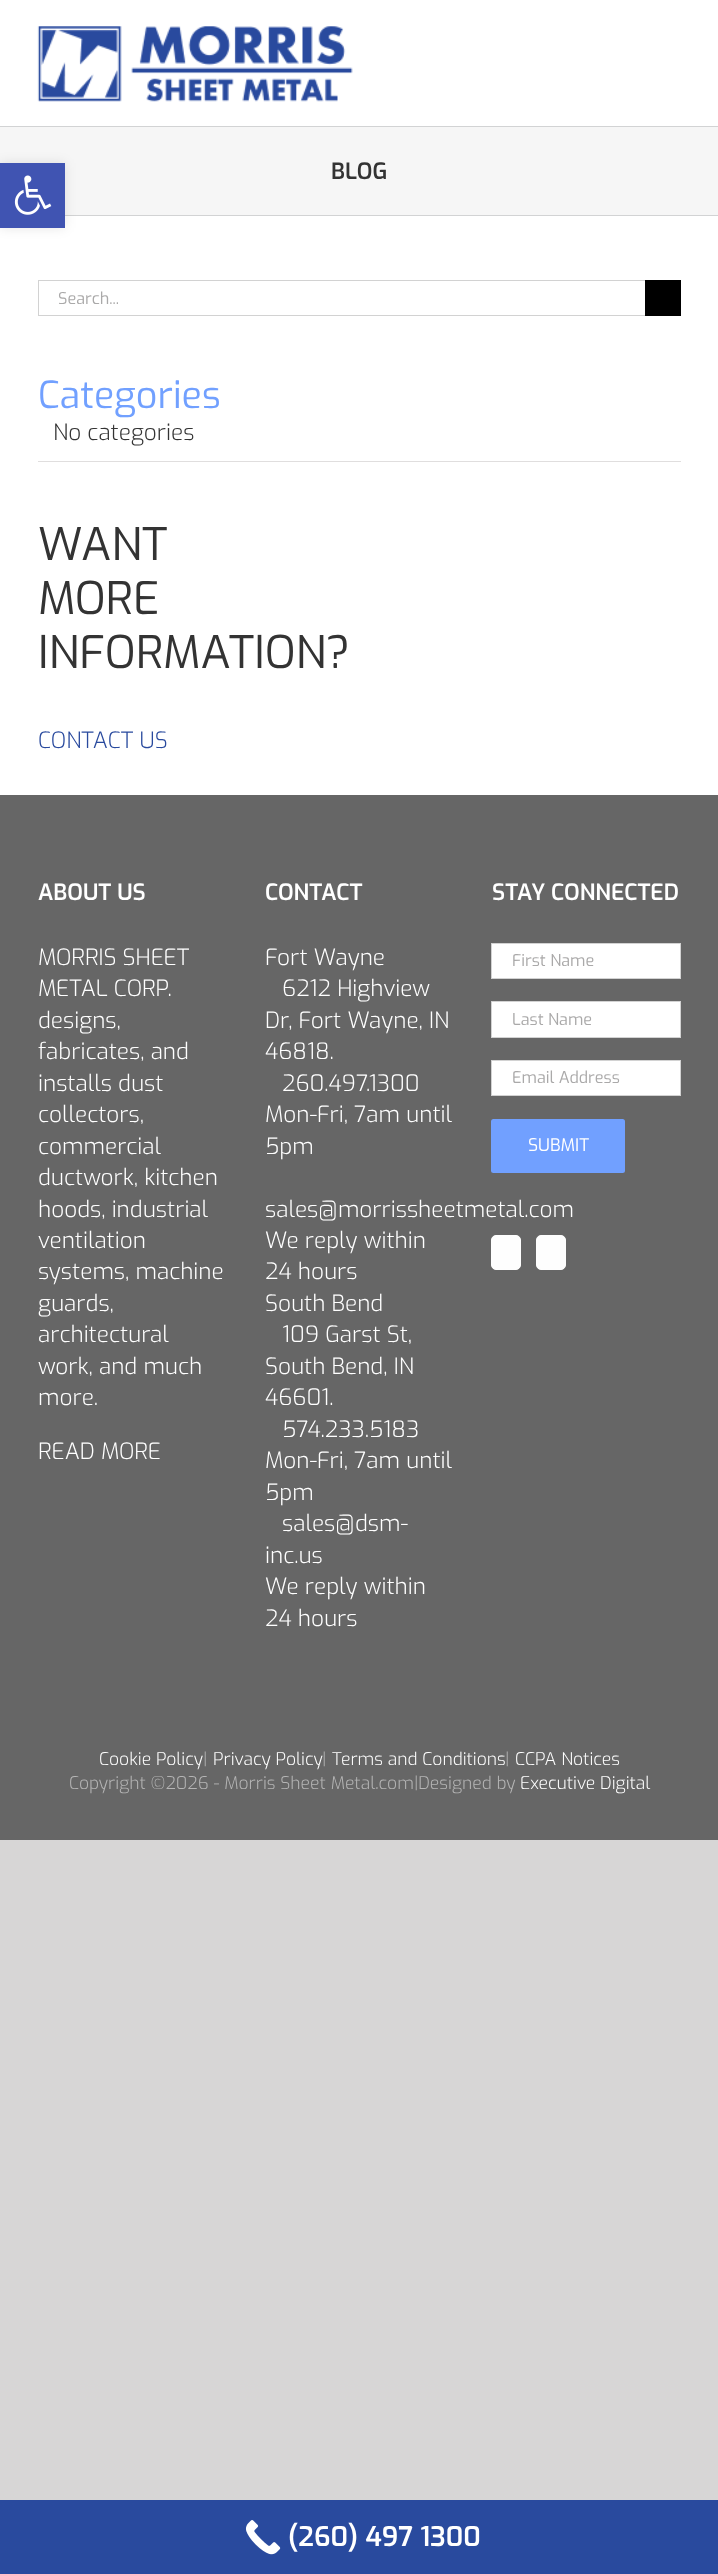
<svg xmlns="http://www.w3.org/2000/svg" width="718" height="2574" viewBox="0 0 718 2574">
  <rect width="100%" height="100%" fill="rgb(215,214,214)"/>
  <rect x="0" y="0" width="718" height="795" fill="rgb(255,255,255)"/>
  <rect x="0" y="127" width="718" height="88" fill="rgb(246,246,246)"/>
  <rect x="65" y="215" width="653" height="1" fill="rgb(210,211,212)"/>
  <rect x="0" y="163" width="65" height="65" fill="rgba(0,0,0,0.1)" filter="blur(6px)"/>
  <rect x="0" y="163" width="65" height="65" fill="rgb(64,84,178)"/>
  <image x="14" y="175" width="38" height="40" href="pic1.png"/>
  <image x="37" y="26" width="316" height="76" href="pic2.png"/>
  <rect x="0" y="126" width="718" height="1" fill="rgb(210,211,212)"/>
  <text x="331" y="179" font-family="Exo" font-size="22.5" font-weight="600" fill="rgb(51,51,51)">BLOG</text>
  <rect x="38" y="280" width="607" height="1" fill="rgb(210,210,210)"/>
  <rect x="38" y="315" width="607" height="1" fill="rgb(210,210,210)"/>
  <rect x="38" y="280" width="1" height="36" fill="rgb(210,210,210)"/>
  <text x="58" y="304" font-family="Exo" font-size="16.25" fill="rgb(170,169,169)">Search...</text>
  <rect x="645" y="280" width="36" height="36" fill="rgb(0,0,0)"/>
  <text x="38" y="408" font-family="Exo" font-size="37.5" fill="rgb(113,160,255)">Categories</text>
  <rect x="38" y="461" width="643" height="1" fill="rgb(224,222,222)"/>
  <text x="53" y="440" font-family="Exo" font-size="22.5" font-weight="300" fill="rgb(51,51,51)">No categories</text>
  <g font-family="Exo" font-size="45" fill="rgb(51,51,51)">
    <text>
      <tspan x="38" y="560">WANT</tspan>
      <tspan x="38" y="614">MORE</tspan>
      <tspan x="38" y="668">INFORMATION?</tspan>
    </text>
  </g>
  <text x="38" y="748" font-family="Exo" font-size="22.5" font-weight="300" fill="rgb(41,74,158)">CONTACT US</text>
  <rect x="0" y="795" width="718" height="1045" fill="rgb(102,102,102)"/>
  <text x="38" y="900" font-family="Exo" font-size="22.5" font-weight="600" fill="rgb(255,255,255)">ABOUT US</text>
  <g font-family="Exo" font-size="22.5" font-weight="300" fill="rgb(255,255,255)">
    <text>
      <tspan x="38" y="965">MORRIS SHEET</tspan>
      <tspan x="38" y="996">METAL CORP.</tspan>
      <tspan x="38" y="1028">designs,</tspan>
      <tspan x="38" y="1059">fabricates, and</tspan>
      <tspan x="38" y="1091">installs dust</tspan>
      <tspan x="38" y="1122">collectors,</tspan>
      <tspan x="38" y="1154">commercial</tspan>
      <tspan x="38" y="1185">ductwork, kitchen</tspan>
      <tspan x="38" y="1217">hoods, industrial</tspan>
      <tspan x="38" y="1248">ventilation</tspan>
      <tspan x="38" y="1279">systems, machine</tspan>
      <tspan x="38" y="1311">guards,</tspan>
      <tspan x="38" y="1342">architectural</tspan>
      <tspan x="38" y="1374">work, and much</tspan>
      <tspan x="38" y="1405">more.</tspan>
    </text>
    <text x="38" y="1459">READ MORE</text>
  </g>
  <text x="265" y="900" font-family="Exo" font-size="22.5" font-weight="600" fill="rgb(255,255,255)">CONTACT</text>
  <g font-family="Exo" font-size="22.5" font-weight="300" fill="rgb(255,255,255)">
    <text x="265" y="965">Fort Wayne</text>
    <text x="282" y="996">6212 Highview</text>
    <text>
      <tspan x="265" y="1028">Dr, Fort Wayne, IN</tspan>
      <tspan x="265" y="1059">46818.</tspan>
    </text>
    <text x="282" y="1091">260.497.1300</text>
    <text>
      <tspan x="265" y="1122">Mon-Fri, 7am until</tspan>
      <tspan x="265" y="1154">5pm</tspan>
    </text>
    <text>
      <tspan x="265" y="1217">sales@morrissheetmetal.com</tspan>
      <tspan x="265" y="1248">We reply within</tspan>
      <tspan x="265" y="1279">24 hours</tspan>
      <tspan x="265" y="1311">South Bend</tspan>
    </text>
    <text x="282" y="1342">109 Garst St,</text>
    <text>
      <tspan x="265" y="1374">South Bend, IN</tspan>
      <tspan x="265" y="1405">46601.</tspan>
    </text>
    <text x="282" y="1437">574.233.5183</text>
    <text>
      <tspan x="265" y="1468">Mon-Fri, 7am until</tspan>
      <tspan x="265" y="1500">5pm</tspan>
    </text>
    <text x="282" y="1531">sales@dsm-</text>
    <text>
      <tspan x="265" y="1563">inc.us</tspan>
      <tspan x="265" y="1594">We reply within</tspan>
      <tspan x="265" y="1626">24 hours</tspan>
    </text>
  </g>
  <text x="492" y="900" font-family="Exo" font-size="22.5" font-weight="600" fill="rgb(255,255,255)">STAY CONNECTED</text>
  <rect x="491.5" y="943.5" width="189" height="35" fill="rgb(255,255,255)" stroke="rgb(210,210,210)"/>
  <text x="512" y="966" font-family="Exo" font-size="16.25" fill="rgb(170,169,169)">First Name</text>
  <rect x="491.5" y="1001.5" width="189" height="36" fill="rgb(255,255,255)" stroke="rgb(210,210,210)"/>
  <text x="512" y="1025" font-family="Exo" font-size="16.25" fill="rgb(170,169,169)">Last Name</text>
  <rect x="491.5" y="1060.5" width="189" height="35" fill="rgb(255,255,255)" stroke="rgb(210,210,210)"/>
  <text x="512" y="1083" font-family="Exo" font-size="16.25" fill="rgb(170,169,169)">Email Address</text>
  <rect x="491" y="1119" width="134" height="54" rx="2.5" fill="rgb(113,160,255)"/>
  <text x="528" y="1151" font-family="Exo" font-size="17.5" fill="rgb(255,255,255)">SUBMIT</text>
  <rect x="491.5" y="1235.5" width="29" height="34" rx="4.5" fill="rgb(254,254,254)" stroke="rgb(254,254,254)"/>
  <rect x="536.5" y="1235.5" width="29" height="34" rx="4.5" fill="rgb(254,254,254)" stroke="rgb(254,254,254)"/>
  <text x="99" y="1765" font-family="Exo" font-size="17.5" font-weight="300" fill="rgb(255,255,255)">Cookie Policy</text>
  <text x="203" y="1765" font-family="Exo" font-size="17.5" font-weight="300" fill="rgb(181,181,181)">|</text>
  <text x="213" y="1765" font-family="Exo" font-size="17.5" font-weight="300" fill="rgb(255,255,255)">Privacy Policy</text>
  <text x="322" y="1765" font-family="Exo" font-size="17.5" font-weight="300" fill="rgb(181,181,181)">|</text>
  <text x="332" y="1765" font-family="Exo" font-size="17.5" font-weight="300" fill="rgb(255,255,255)">Terms and Conditions</text>
  <text x="505" y="1765" font-family="Exo" font-size="17.5" font-weight="300" fill="rgb(181,181,181)">|</text>
  <text x="515" y="1765" font-family="Exo" font-size="17.5" font-weight="300" fill="rgb(255,255,255)">CCPA Notices</text>
  <text x="69" y="1789" font-family="Exo" font-size="17.5" font-weight="300" fill="rgb(181,181,181)">Copyright ©2026 - Morris Sheet Metal.com|Designed by</text>
  <text x="520" y="1789" font-family="Exo" font-size="17.5" font-weight="300" fill="rgb(255,255,255)">Executive Digital</text>
  <rect x="0" y="2500" width="718" height="74" fill="rgb(41,74,158)"/>
  <image x="245" y="2520" width="36" height="35" href="pic3.png"/>
  <text x="288" y="2546" font-family="Exo" font-size="27" font-weight="600" fill="rgb(255,255,255)">(260) 497 1300</text>
</svg>
